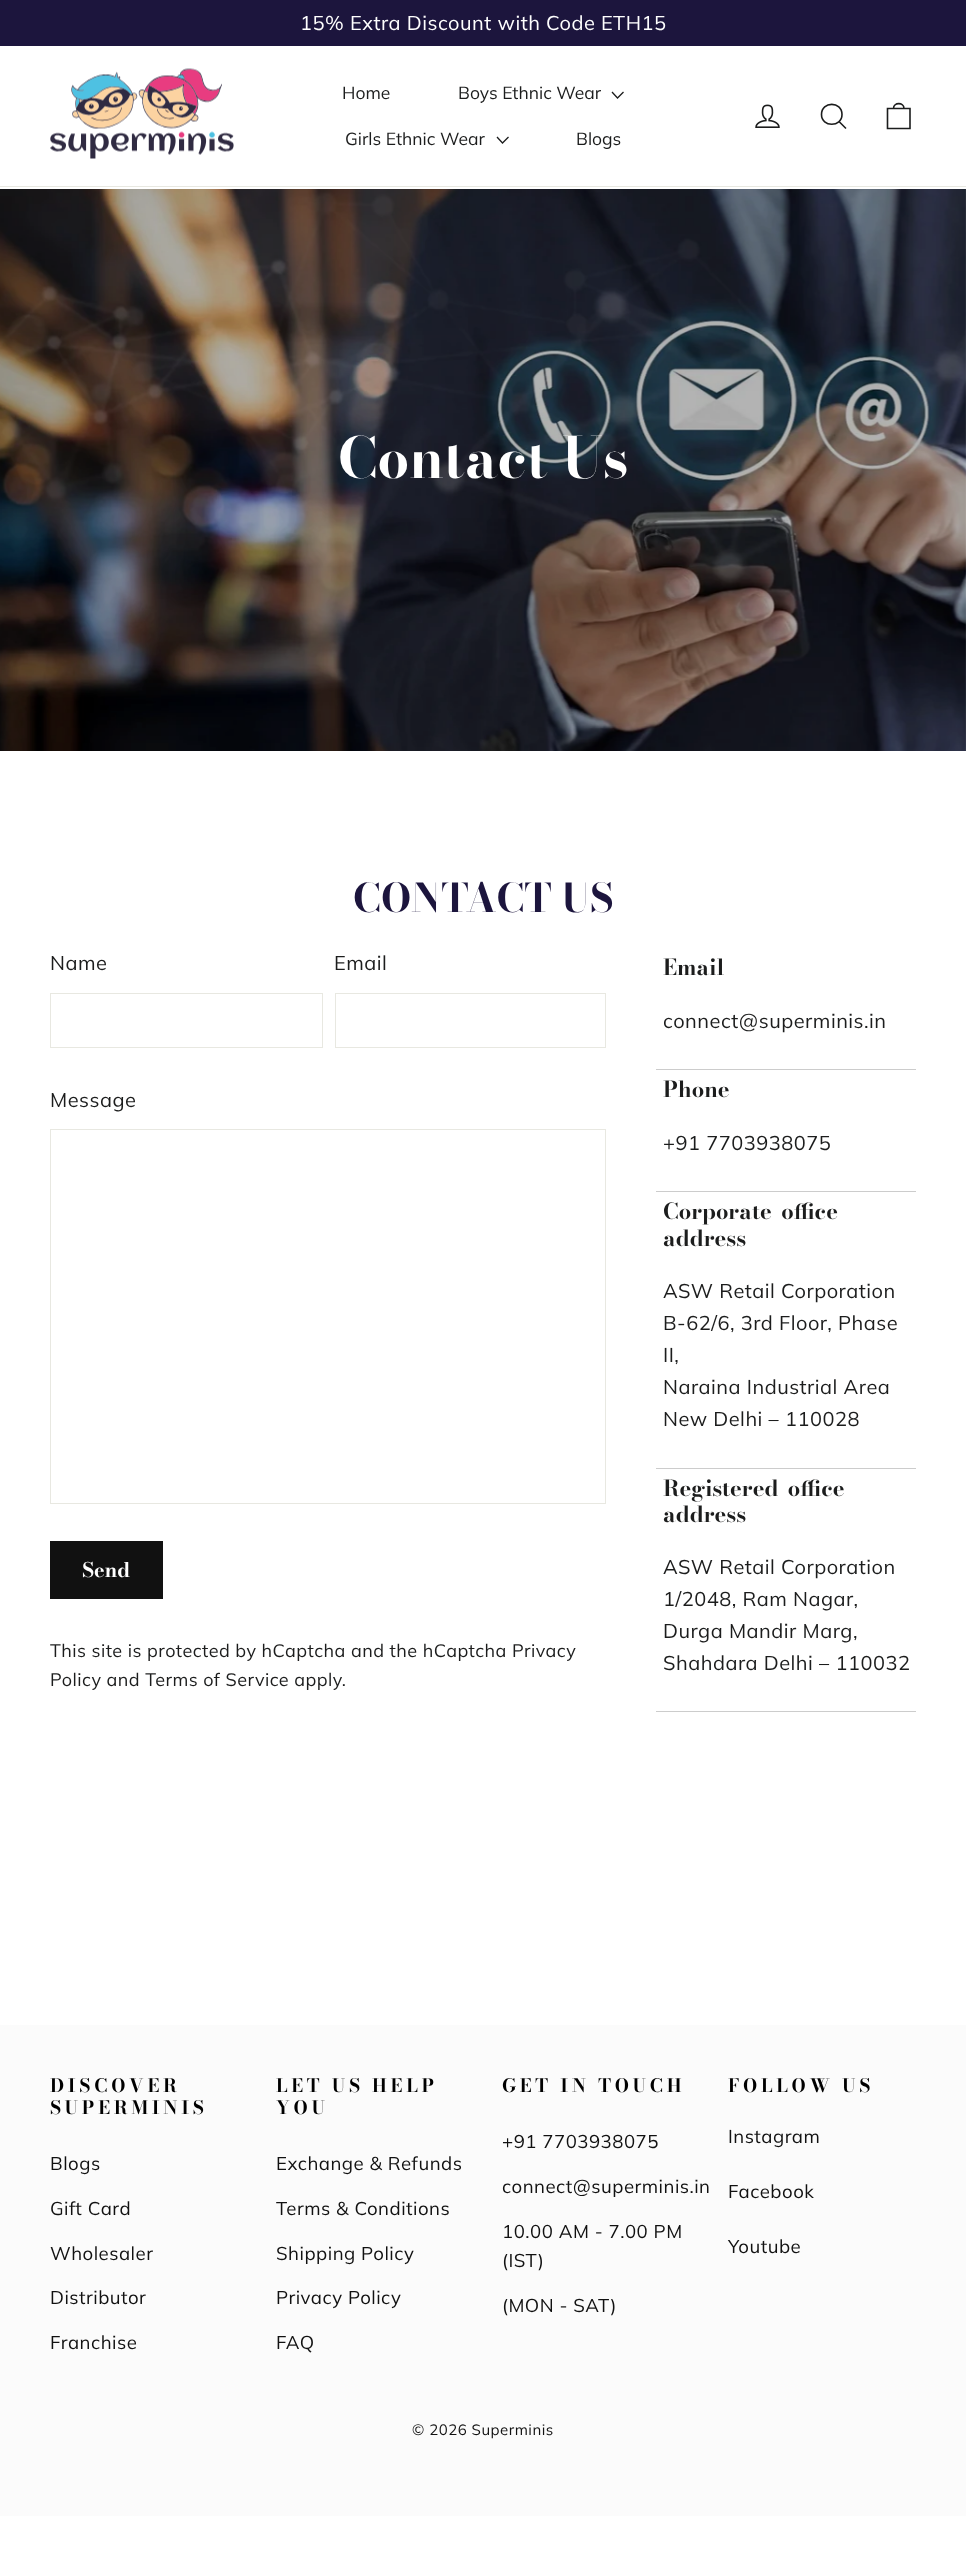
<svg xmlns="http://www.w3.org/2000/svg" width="966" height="2549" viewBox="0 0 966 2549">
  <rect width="100%" height="100%" fill="rgb(255,255,255)"/>
  <rect x="0" y="0" width="966" height="46" fill="rgb(28,21,61)"/>
  <text x="300" y="30" font-family="Muli" font-size="20" letter-spacing="0.5" fill="rgb(255,255,255)">15% Extra Discount with Code ETH15</text>
  <rect x="0" y="186" width="966" height="1" fill="rgb(232,232,225)"/>
  <image x="50" y="68" width="184" height="91" href="pic1.png"/>
  <g font-family="Muli" font-size="17.5" fill="rgb(28,29,29)">
    <text x="342" y="99">Home</text>
    <text x="458" y="99">Boys Ethnic Wear</text>
  </g>
  <path d="M612 92L617.5 98L623.5 92" fill="none" stroke="rgb(28,29,29)" stroke-width="1.3"/>
  <text x="345" y="145" font-family="Muli" font-size="17.5" fill="rgb(28,29,29)">Girls Ethnic Wear</text>
  <path d="M497 137L502.5 143L508.5 137" fill="none" stroke="rgb(28,29,29)" stroke-width="1.3"/>
  <text x="576" y="145" font-family="Muli" font-size="17.5" fill="rgb(28,29,29)">Blogs</text>
  <image x="755" y="104" width="25" height="24" href="pic2.png"/>
  <path d="M842 114.5C842 127.5 821.5 127.5 821.5 114.5C821.5 101 842 101 842 114.5ZM846 128.5L839 121.5" fill="none" stroke="rgb(28,29,29)" stroke-width="1.6"/>
  <path d="M887.5 108.5H910V128.5H887.5ZM893.5 108.5C893.5 102 904 102 904 108.5" fill="none" stroke="rgb(28,29,29)" stroke-width="1.6"/>
  <image x="0" y="189" width="966" height="562" href="pic3.png"/>
  <text x="338" y="478" font-family="'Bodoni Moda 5'" font-size="56.25" font-weight="bold" fill="rgb(255,255,255)">Contact Us</text>
  <text x="353" y="912" font-family="'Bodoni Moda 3'" font-size="39.5" font-weight="bold" fill="rgb(28,21,61)">CONTACT US</text>
  <text x="50" y="970" font-family="Muli" font-size="20" letter-spacing="0.5" fill="rgb(28,29,29)">Name</text>
  <rect x="50.5" y="993.5" width="272" height="54" fill="none" stroke="rgb(232,232,225)"/>
  <text x="334" y="970" font-family="Muli" font-size="20" letter-spacing="0.5" fill="rgb(28,29,29)">Email</text>
  <rect x="335.5" y="993.5" width="270" height="54" fill="none" stroke="rgb(232,232,225)"/>
  <text x="50" y="1107" font-family="Muli" font-size="20" letter-spacing="0.5" fill="rgb(28,29,29)">Message</text>
  <rect x="50.5" y="1129.5" width="555" height="374" fill="none" stroke="rgb(232,232,225)"/>
  <rect x="50" y="1541" width="113" height="58" fill="rgb(17,17,17)"/>
  <text x="82" y="1577" font-family="Bodoni Moda" font-size="20" font-weight="bold" fill="rgb(255,255,255)">Send</text>
  <g font-family="Muli" font-size="18" letter-spacing="0.45" fill="rgb(28,29,29)">
    <text>
      <tspan x="50" y="1657">This site is protected by hCaptcha and the hCaptcha Privacy</tspan>
      <tspan x="50" y="1686">Policy and Terms of Service apply.</tspan>
    </text>
  </g>
  <rect x="656" y="1069" width="260" height="1" fill="rgb(204,204,204)"/>
  <text x="663" y="975" font-family="'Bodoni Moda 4'" font-size="22" font-weight="bold" fill="rgb(28,29,29)">Email</text>
  <text x="663" y="1028" font-family="Muli" font-size="20" letter-spacing="0.5" fill="rgb(28,29,29)">connect@superminis.in</text>
  <rect x="656" y="1191" width="260" height="1" fill="rgb(204,204,204)"/>
  <text x="663" y="1097" font-family="'Bodoni Moda 4'" font-size="22" font-weight="bold" fill="rgb(28,29,29)">Phone</text>
  <text x="663" y="1150" font-family="Muli" font-size="20" letter-spacing="0.5" fill="rgb(28,29,29)">+91 7703938075</text>
  <rect x="656" y="1468" width="260" height="1" fill="rgb(204,204,204)"/>
  <g font-family="'Bodoni Moda 4'" font-size="22" font-weight="bold" fill="rgb(28,29,29)">
    <text>
      <tspan x="663" y="1219" word-spacing="4">Corporate office</tspan>
      <tspan x="663" y="1246">address</tspan>
    </text>
  </g>
  <g font-family="Muli" font-size="20" letter-spacing="0.5" fill="rgb(28,29,29)">
    <text>
      <tspan x="663" y="1298">ASW Retail Corporation</tspan>
      <tspan x="663" y="1330">B-62/6, 3rd Floor, Phase</tspan>
      <tspan x="663" y="1362">II,</tspan>
      <tspan x="663" y="1394">Naraina Industrial Area</tspan>
      <tspan x="663" y="1426">New Delhi – 110028</tspan>
    </text>
  </g>
  <rect x="656" y="1711" width="260" height="1" fill="rgb(204,204,204)"/>
  <g font-family="'Bodoni Moda 4'" font-size="22" font-weight="bold" fill="rgb(28,29,29)">
    <text>
      <tspan x="663" y="1496" word-spacing="4">Registered office</tspan>
      <tspan x="663" y="1522">address</tspan>
    </text>
  </g>
  <g font-family="Muli" font-size="20" letter-spacing="0.5" fill="rgb(28,29,29)">
    <text>
      <tspan x="663" y="1574">ASW Retail Corporation</tspan>
      <tspan x="663" y="1606">1/2048, Ram Nagar,</tspan>
      <tspan x="663" y="1638">Durga Mandir Marg,</tspan>
      <tspan x="663" y="1670">Shahdara Delhi – 110032</tspan>
    </text>
  </g>
  <rect x="0" y="2025" width="966" height="491" fill="rgb(251,251,251)"/>
  <g font-family="'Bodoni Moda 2'" font-size="18.4" font-weight="bold" letter-spacing="3.75" fill="rgb(0,0,0)">
    <text>
      <tspan x="50" y="2092">DISCOVER</tspan>
      <tspan x="50" y="2114">SUPERMINIS</tspan>
    </text>
  </g>
  <g font-family="Muli" font-size="18.6" letter-spacing="0.5" fill="rgb(17,17,17)">
    <text x="50" y="2170">Blogs</text>
    <text x="50" y="2215">Gift Card</text>
    <text x="50" y="2260">Wholesaler</text>
    <text x="50" y="2304">Distributor</text>
    <text x="50" y="2349">Franchise</text>
  </g>
  <g font-family="'Bodoni Moda 2'" font-size="18.4" font-weight="bold" letter-spacing="3.75" fill="rgb(0,0,0)">
    <text>
      <tspan x="276" y="2092">LET US HELP</tspan>
      <tspan x="276" y="2114">YOU</tspan>
    </text>
  </g>
  <g font-family="Muli" font-size="18.6" letter-spacing="0.5" fill="rgb(17,17,17)">
    <text x="276" y="2170">Exchange &amp; Refunds</text>
    <text x="276" y="2215">Terms &amp; Conditions</text>
    <text x="276" y="2260">Shipping Policy</text>
    <text x="276" y="2304">Privacy Policy</text>
    <text x="276" y="2349">FAQ</text>
  </g>
  <text x="502" y="2092" font-family="'Bodoni Moda 2'" font-size="18.4" font-weight="bold" letter-spacing="3.75" fill="rgb(0,0,0)">GET IN TOUCH</text>
  <g font-family="Muli" font-size="18.6" letter-spacing="0.5" fill="rgb(17,17,17)">
    <text x="502" y="2148">+91 7703938075</text>
    <text x="502" y="2193">connect@superminis.in</text>
    <text>
      <tspan x="502" y="2238">10.00 AM - 7.00 PM</tspan>
      <tspan x="502" y="2267">(IST)</tspan>
    </text>
    <text x="502" y="2312">(MON - SAT)</text>
  </g>
  <text x="728" y="2092" font-family="'Bodoni Moda 2'" font-size="18.4" font-weight="bold" letter-spacing="3.75" fill="rgb(0,0,0)">FOLLOW US</text>
  <g font-family="Muli" font-size="18.6" letter-spacing="0.5" fill="rgb(17,17,17)">
    <text x="728" y="2143">Instagram</text>
    <text x="728" y="2198">Facebook</text>
    <text x="728" y="2253">Youtube</text>
  </g>
  <text x="412" y="2435" font-family="Muli" font-size="15" letter-spacing="0.5" fill="rgb(17,17,17)">© 2026 Superminis</text>
</svg>
